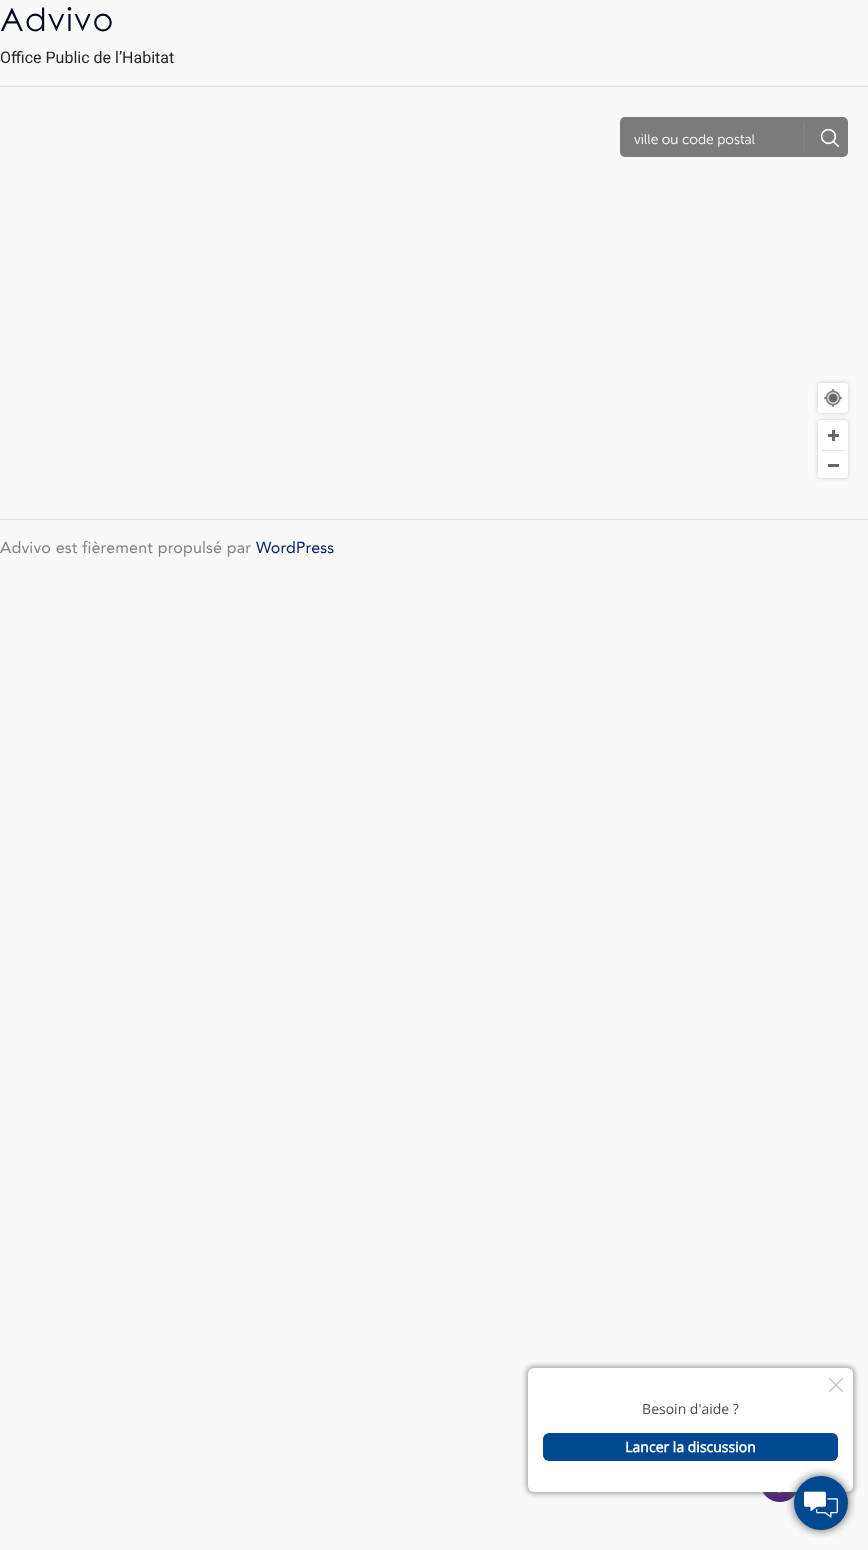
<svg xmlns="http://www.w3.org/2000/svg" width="868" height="1550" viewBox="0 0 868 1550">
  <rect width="100%" height="100%" fill="rgb(249,249,249)"/>
  <text x="0" y="31" font-family="Century Gothic" font-size="32" letter-spacing="1" fill="rgb(0,9,29)">Advivo</text>
  <text x="0" y="63" font-family="Roboto" font-size="16" fill="rgb(33,37,41)">Office Public de l’Habitat</text>
  <rect x="0" y="86" width="868" height="1" fill="rgb(224,224,224)"/>
  <rect x="620" y="117" width="228" height="40" rx="5" fill="rgb(123,123,123)"/>
  <text x="634" y="144" font-family="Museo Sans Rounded" font-size="14" font-weight="300" fill="rgb(255,255,255)">ville ou code postal</text>
  <rect x="803" y="122" width="2" height="30" fill="rgb(128,128,128)"/>
  <image x="821" y="129" width="18" height="18" href="pic1.png"/>
  <rect x="818" y="383" width="30" height="30" rx="3" fill="rgba(0,0,0,0.18)" filter="blur(2px)"/>
  <rect x="818" y="383" width="30" height="30" rx="3" fill="rgb(255,255,255)"/>
  <image x="824" y="389" width="18" height="18" href="pic2.png"/>
  <rect x="818" y="420" width="30" height="58" rx="3" fill="rgba(0,0,0,0.18)" filter="blur(2px)"/>
  <rect x="818" y="420" width="30" height="58" rx="3" fill="rgb(255,255,255)"/>
  <image x="828" y="430" width="11" height="11" href="pic3.png"/>
  <rect x="822" y="450" width="22" height="1" fill="rgb(230,230,230)"/>
  <rect x="828" y="464" width="11" height="3" fill="rgb(102,102,102)"/>
  <rect x="0" y="519" width="868" height="1" fill="rgb(224,224,224)"/>
  <text x="0" y="553" font-family="Avenir" font-size="16" letter-spacing="0.2" fill="rgb(128,128,128)">Advivo est fièrement propulsé par</text>
  <text x="256" y="553" font-family="Avenir" font-size="16" letter-spacing="0.2" fill="rgb(1,33,105)">WordPress</text>
  <image x="762" y="1492" width="35" height="10" href="pic6.png"/>
  <rect x="526" y="1366" width="329" height="128" rx="8" fill="rgba(85,85,85,0.49)" filter="blur(2.5px)"/>
  <image x="528" y="1368" width="325" height="124" href="pic4.png"/>
  <image x="786" y="1468" width="70" height="70" href="pic5.png"/>
</svg>
